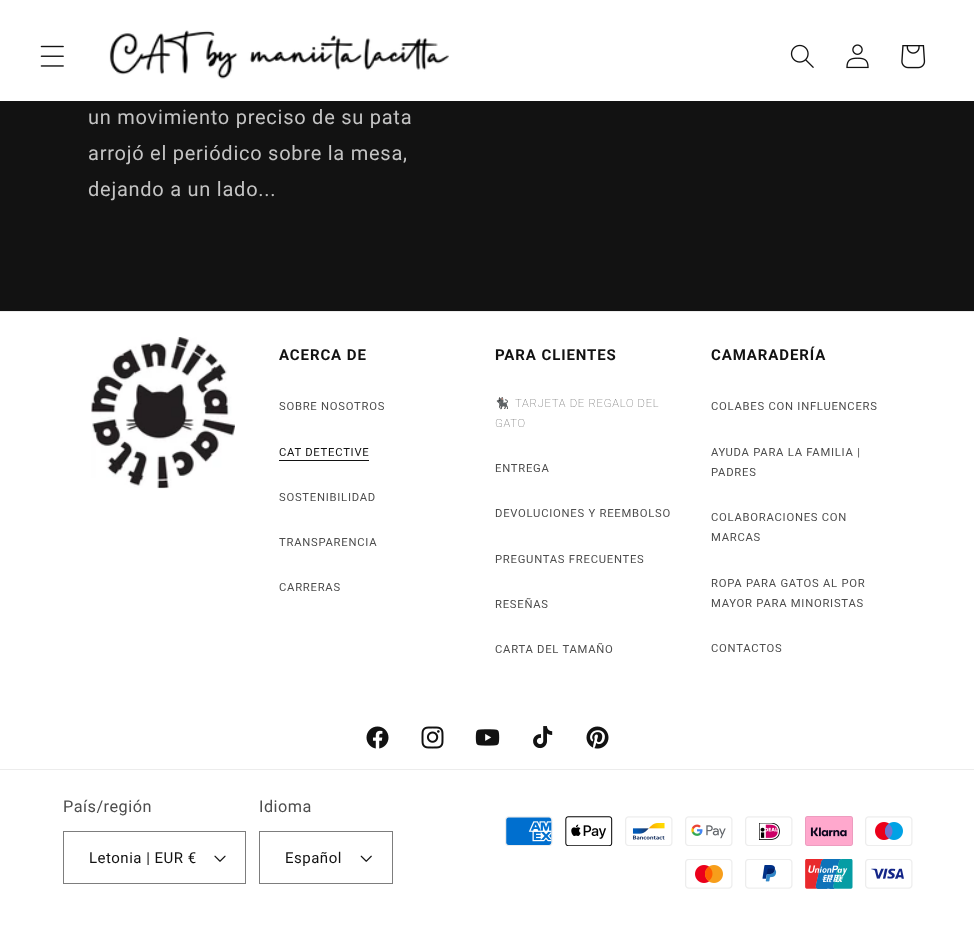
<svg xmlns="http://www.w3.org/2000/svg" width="974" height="934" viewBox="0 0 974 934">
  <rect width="100%" height="100%" fill="rgb(255,255,255)"/>
  <image x="40" y="45" width="24" height="22" href="pic1.png"/>
  <image x="109" y="30" width="340" height="49" href="pic2.png"/>
  <image x="790" y="44" width="24" height="24" href="pic3.png"/>
  <image x="846" y="44" width="23" height="25" href="pic4.png"/>
  <image x="901" y="45" width="25" height="24" href="pic5.png"/>
  <rect x="0" y="101" width="974" height="210" fill="rgb(18,18,18)"/>
  <g font-family="Roboto" font-size="20" letter-spacing="0.75" fill="rgb(196,196,196)">
    <text>
      <tspan x="88" y="124">un movimiento preciso de su pata</tspan>
      <tspan x="88" y="160">arrojó el periódico sobre la mesa,</tspan>
      <tspan x="88" y="196">dejando a un lado...</tspan>
    </text>
  </g>
  <rect x="0" y="311" width="974" height="1" fill="rgb(236,236,236)"/>
  <image x="91" y="337" width="144" height="152" href="pic6.png"/>
  <text x="279" y="360" font-family="Roboto" font-size="15" font-weight="bold" letter-spacing="0.9" fill="rgb(18,18,18)">ACERCA DE</text>
  <text x="279" y="410" font-family="Roboto" font-size="11.25" letter-spacing="0.75" fill="rgb(77,77,77)">SOBRE NOSOTROS</text>
  <text x="279" y="456" font-family="Roboto" font-size="11.25" letter-spacing="0.75" fill="rgb(18,18,18)">CAT DETECTIVE</text>
  <rect x="279" y="460" width="90" height="1" fill="rgb(18,18,18)"/>
  <g font-family="Roboto" font-size="11.25" letter-spacing="0.75" fill="rgb(77,77,77)">
    <text x="279" y="501">SOSTENIBILIDAD</text>
    <text x="279" y="546">TRANSPARENCIA</text>
    <text x="279" y="591">CARRERAS</text>
  </g>
  <text x="495" y="360" font-family="Roboto" font-size="15" font-weight="bold" letter-spacing="0.9" fill="rgb(18,18,18)">PARA CLIENTES</text>
  <text x="495" y="407" font-family="Noto Color Emoji" font-size="11.25" letter-spacing="0.75" fill="rgb(77,77,77)">🐈‍⬛️</text>
  <g font-family="Roboto" font-size="11.25" font-weight="100" letter-spacing="0.75" fill="rgb(77,77,77)">
    <text x="515" y="407">TARJETA DE REGALO DEL</text>
    <text x="495" y="427">GATO</text>
  </g>
  <g font-family="Roboto" font-size="11.25" letter-spacing="0.75" fill="rgb(77,77,77)">
    <text x="495" y="472">ENTREGA</text>
    <text x="495" y="517">DEVOLUCIONES Y REEMBOLSO</text>
    <text x="495" y="563">PREGUNTAS FRECUENTES</text>
    <text x="495" y="608">RESEÑAS</text>
    <text x="495" y="653">CARTA DEL TAMAÑO</text>
  </g>
  <text x="711" y="360" font-family="Roboto" font-size="15" font-weight="bold" letter-spacing="0.9" fill="rgb(18,18,18)">CAMARADERÍA</text>
  <g font-family="Roboto" font-size="11.25" letter-spacing="0.75" fill="rgb(77,77,77)">
    <text x="711" y="410">COLABES CON INFLUENCERS</text>
    <text>
      <tspan x="711" y="456">AYUDA PARA LA FAMILIA |</tspan>
      <tspan x="711" y="476">PADRES</tspan>
    </text>
    <text>
      <tspan x="711" y="521">COLABORACIONES CON</tspan>
      <tspan x="711" y="541">MARCAS</tspan>
    </text>
    <text>
      <tspan x="711" y="587">ROPA PARA GATOS AL POR</tspan>
      <tspan x="711" y="607">MAYOR PARA MINORISTAS</tspan>
    </text>
    <text x="711" y="652">CONTACTOS</text>
  </g>
  <image x="366" y="726" width="23" height="23" href="pic7.png"/>
  <image x="421" y="726" width="23" height="23" href="pic8.png"/>
  <image x="475" y="729" width="25" height="17" href="pic9.png"/>
  <image x="533" y="726" width="20" height="23" href="pic10.png"/>
  <image x="586" y="726" width="23" height="23" href="pic11.png"/>
  <rect x="0" y="769" width="974" height="1" fill="rgb(236,236,236)"/>
  <text x="63" y="812" font-family="Roboto" font-size="16.25" letter-spacing="0.5" fill="rgb(77,77,77)">País/región</text>
  <image x="214" y="855" width="12" height="7" href="pic12.png"/>
  <rect x="63.5" y="831.5" width="182" height="52" fill="none" stroke="rgb(125,125,125)"/>
  <text x="89" y="863" font-family="Roboto" font-size="15" letter-spacing="0.5" fill="rgb(18,18,18)">Letonia | EUR €</text>
  <text x="259" y="812" font-family="Roboto" font-size="16.25" letter-spacing="0.5" fill="rgb(77,77,77)">Idioma</text>
  <image x="360" y="855" width="12" height="7" href="pic13.png"/>
  <rect x="259.5" y="831.5" width="133" height="52" fill="none" stroke="rgb(125,125,125)"/>
  <text x="285" y="863" font-family="Roboto" font-size="15" letter-spacing="0.5" fill="rgb(18,18,18)">Español</text>
  <image x="505" y="816" width="48" height="30" href="pic14.png"/>
  <image x="565" y="816" width="48" height="30" href="pic15.png"/>
  <image x="625" y="816" width="48" height="30" href="pic16.png"/>
  <image x="685" y="816" width="48" height="30" href="pic17.png"/>
  <image x="745" y="816" width="48" height="30" href="pic18.png"/>
  <image x="805" y="816" width="48" height="30" href="pic19.png"/>
  <image x="865" y="816" width="48" height="30" href="pic20.png"/>
  <image x="685" y="859" width="48" height="30" href="pic21.png"/>
  <image x="745" y="859" width="48" height="30" href="pic22.png"/>
  <image x="805" y="859" width="48" height="30" href="pic23.png"/>
  <image x="865" y="859" width="48" height="30" href="pic24.png"/>
</svg>
